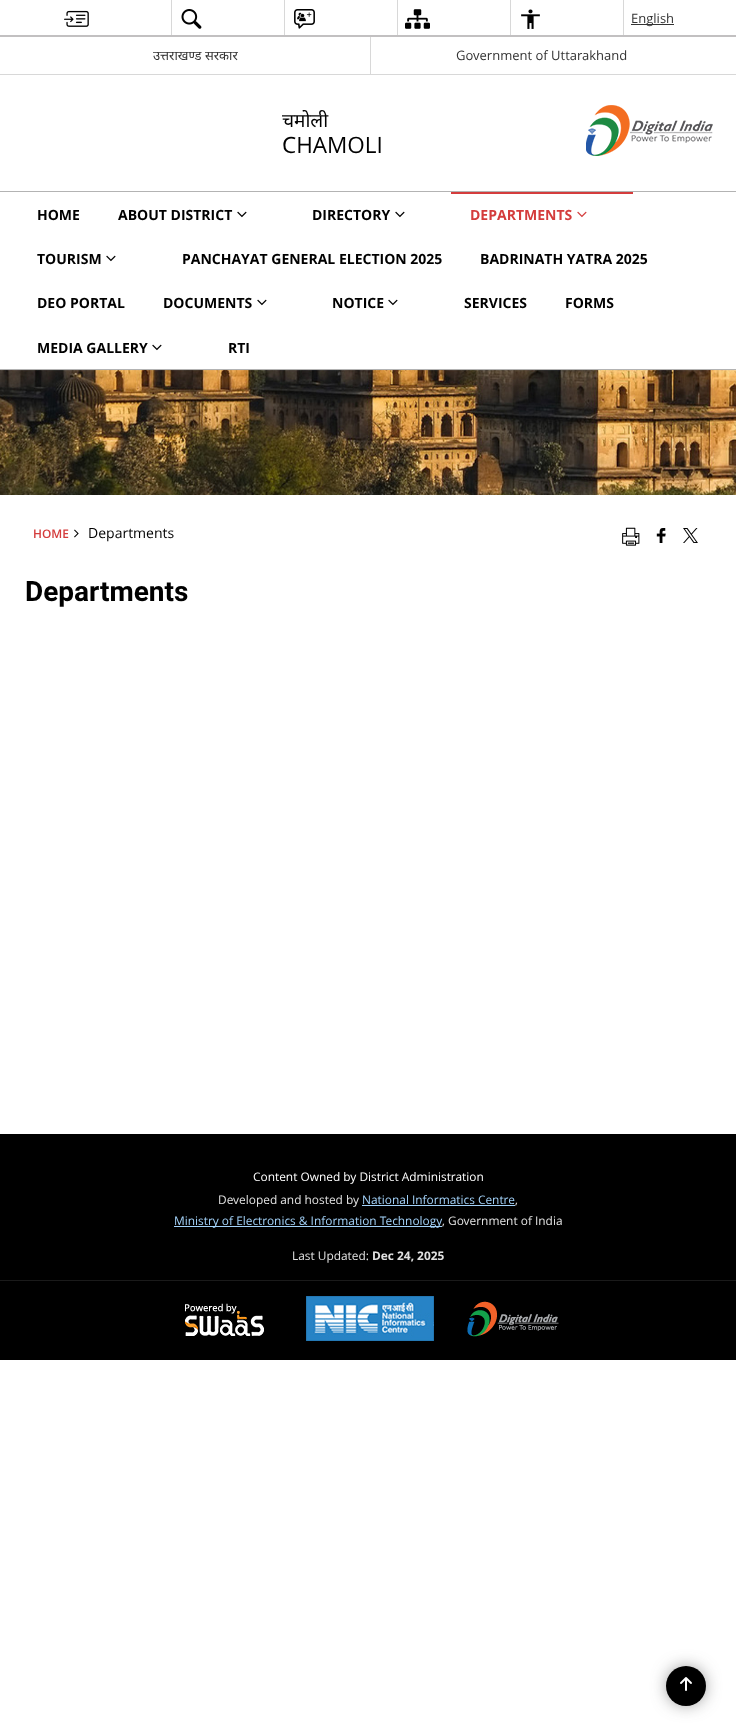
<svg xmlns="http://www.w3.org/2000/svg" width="736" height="1736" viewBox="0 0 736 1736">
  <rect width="100%" height="100%" fill="rgb(255,255,255)"/>
  <rect x="0" y="74" width="736" height="1" fill="rgb(216,216,216)"/>
  <image x="64" y="10" width="25" height="17" href="pic1.png"/>
  <rect x="171" y="0" width="1" height="37" fill="rgb(216,216,216)"/>
  <image x="181" y="9" width="21" height="20" href="pic2.png"/>
  <rect x="284" y="0" width="1" height="37" fill="rgb(216,216,216)"/>
  <image x="294" y="9" width="21" height="20" href="pic3.png"/>
  <rect x="397" y="0" width="1" height="37" fill="rgb(216,216,216)"/>
  <image x="405" y="9" width="25" height="20" href="pic4.png"/>
  <rect x="510" y="0" width="1" height="37" fill="rgb(216,216,216)"/>
  <image x="521" y="9" width="19" height="20" href="pic5.png"/>
  <rect x="623" y="0" width="1" height="37" fill="rgb(216,216,216)"/>
  <rect x="631" y="24" width="43" height="1" fill="rgb(51,51,51)"/>
  <text x="631" y="23" font-family="Open Sans" font-size="13" fill="rgb(51,51,51)">English</text>
  <text x="153" y="60" font-family="Noto Sans" font-size="13" fill="rgb(51,51,51)">उत्तराखण्ड सरकार</text>
  <rect x="370" y="37" width="1" height="37" fill="rgb(216,216,216)"/>
  <text x="456" y="60" font-family="Open Sans" font-size="13" fill="rgb(51,51,51)">Government of Uttarakhand</text>
  <rect x="0" y="35" width="736" height="2" fill="rgb(194,192,193)"/>
  <text x="282" y="127" font-family="Noto Sans" font-size="19" fill="rgb(0,0,0)">चमोली</text>
  <text x="282" y="153" font-family="Open Sans" font-size="22.5" fill="rgb(0,0,0)">CHAMOLI</text>
  <image x="586" y="105" width="127" height="51" href="pic6.png"/>
  <rect x="0" y="191" width="736" height="1" fill="rgb(179,179,179)"/>
  <rect x="0" y="369" width="736" height="1" fill="rgb(179,179,179)"/>
  <g font-family="Open Sans" font-size="14" font-weight="bold" fill="rgb(0,0,0)">
    <text x="37" y="220">HOME</text>
    <text x="118" y="220">ABOUT DISTRICT</text>
  </g>
  <image x="237" y="211" width="10" height="7" href="pic7.png"/>
  <text x="312" y="220" font-family="Open Sans" font-size="14" font-weight="bold" fill="rgb(0,0,0)">DIRECTORY</text>
  <image x="395" y="211" width="10" height="7" href="pic7.png"/>
  <rect x="451" y="192" width="182" height="2" fill="rgb(212,60,60)"/>
  <text x="470" y="220" font-family="Open Sans" font-size="14" font-weight="bold" fill="rgb(212,60,60)">DEPARTMENTS</text>
  <image x="577" y="211" width="10" height="7" href="pic8.png"/>
  <text x="37" y="264" font-family="Open Sans" font-size="14" font-weight="bold" fill="rgb(0,0,0)">TOURISM</text>
  <image x="106" y="255" width="10" height="7" href="pic7.png"/>
  <g font-family="Open Sans" font-size="14" font-weight="bold" fill="rgb(0,0,0)">
    <text x="182" y="264">PANCHAYAT GENERAL ELECTION 2025</text>
    <text x="480" y="264">BADRINATH YATRA 2025</text>
    <text x="37" y="308">DEO PORTAL</text>
    <text x="163" y="308">DOCUMENTS</text>
  </g>
  <image x="257" y="299" width="10" height="7" href="pic7.png"/>
  <text x="332" y="308" font-family="Open Sans" font-size="14" font-weight="bold" fill="rgb(0,0,0)">NOTICE</text>
  <image x="388" y="299" width="10" height="7" href="pic7.png"/>
  <g font-family="Open Sans" font-size="14" font-weight="bold" fill="rgb(0,0,0)">
    <text x="464" y="308">SERVICES</text>
    <text x="565" y="308">FORMS</text>
    <text x="37" y="353">MEDIA GALLERY</text>
  </g>
  <image x="152" y="344" width="10" height="7" href="pic7.png"/>
  <text x="228" y="353" font-family="Open Sans" font-size="14" font-weight="bold" fill="rgb(0,0,0)">RTI</text>
  <image x="0" y="370" width="736" height="125" href="pic9.png"/>
  <text x="33" y="538" font-family="Open Sans" font-size="11.9" font-weight="600" fill="rgb(212,60,60)">HOME</text>
  <image x="74" y="529" width="5" height="9" href="pic10.png"/>
  <text x="88" y="538" font-family="Open Sans" font-size="14" fill="rgb(0,0,0)">Departments</text>
  <image x="622" y="527" width="18" height="19" href="pic11.png"/>
  <image x="656" y="528" width="10" height="15" href="pic12.png"/>
  <image x="683" y="528" width="15" height="15" href="pic13.png"/>
  <text x="25" y="601" font-family="Roboto" font-size="28" font-weight="bold" fill="rgb(0,0,0)">Departments</text>
  <rect x="0" y="1134" width="736" height="226" fill="rgb(0,0,0)"/>
  <text x="253" y="1181" font-family="Open Sans" font-size="11.9" fill="rgb(255,255,255)">Content Owned by District Administration</text>
  <text x="218" y="1204" font-family="Open Sans" font-size="11.9" fill="rgb(225,225,225)">Developed and hosted by</text>
  <text x="362" y="1204" font-family="Open Sans" font-size="11.9" fill="rgb(163,210,249)">National Informatics Centre</text>
  <rect x="362" y="1205" width="153" height="1" fill="rgb(163,210,249)"/>
  <text x="515" y="1204" font-family="Open Sans" font-size="11.9" fill="rgb(225,225,225)">,</text>
  <rect x="174" y="1226" width="268" height="1" fill="rgb(163,210,249)"/>
  <text x="174" y="1225" font-family="Open Sans" font-size="11.9" fill="rgb(163,210,249)">Ministry of Electronics &amp; Information Technology</text>
  <g font-family="Open Sans" font-size="11.9" fill="rgb(225,225,225)">
    <text x="442" y="1225">, Government of India</text>
    <text x="292" y="1260">Last Updated:</text>
  </g>
  <text x="372" y="1260" font-family="Open Sans" font-size="11.9" font-weight="bold" fill="rgb(225,225,225)">Dec 24, 2025</text>
  <rect x="0" y="1280" width="736" height="1" fill="rgb(26,26,26)"/>
  <image x="185" y="1303" width="79" height="33" href="pic14.png"/>
  <image x="306" y="1296" width="128" height="45" href="pic15.png"/>
  <image x="467" y="1301" width="92" height="36" href="pic16.png"/>
  <rect x="671" y="1671" width="30" height="30" rx="15" fill="rgb(60,60,60)" filter="blur(9.5px)"/>
  <circle cx="686" cy="1686" r="20" fill="rgb(0,0,0)"/>
  <image x="680" y="1677" width="12" height="14" href="pic17.png"/>
</svg>
